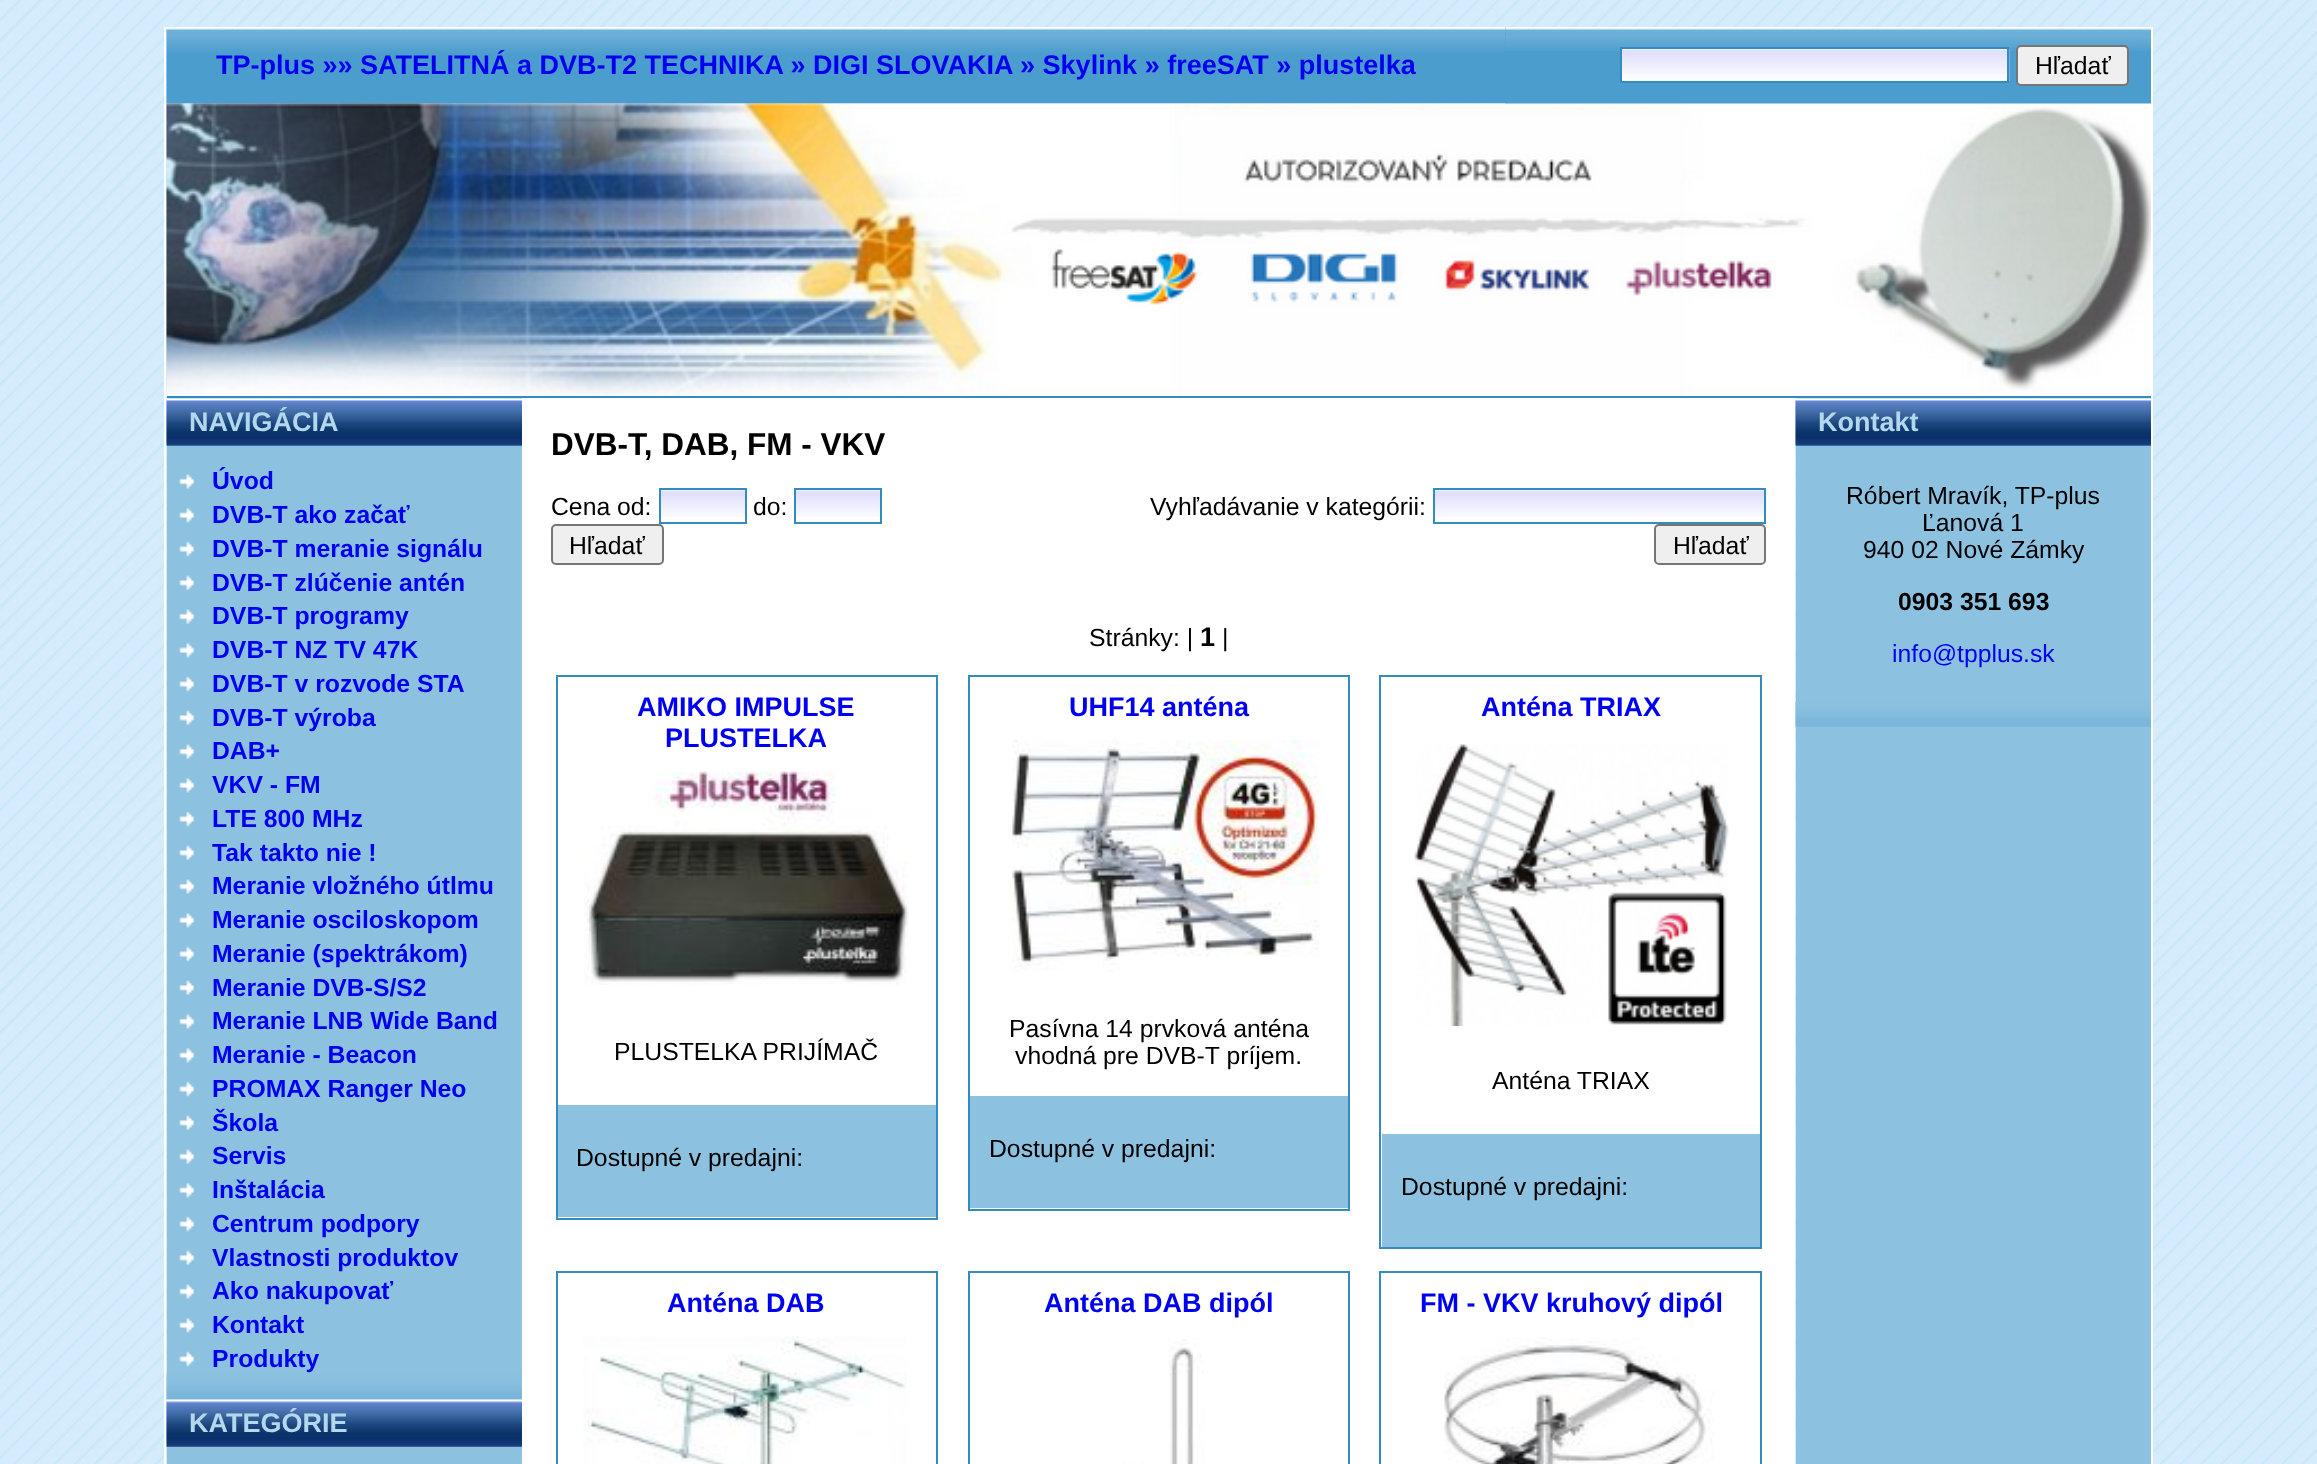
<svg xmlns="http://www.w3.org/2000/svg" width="2317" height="1464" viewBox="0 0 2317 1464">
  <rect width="100%" height="100%" fill="rgb(255,255,255)"/>
  <image x="0" y="0" width="2317" height="1464" href="pic1.png"/>
  <rect x="164" y="27" width="2" height="1437" fill="rgb(255,255,255)"/>
  <image x="166" y="27" width="1339" height="77" href="pic2.png"/>
  <text x="216" y="74" font-family="Liberation Sans" font-size="27" font-weight="bold" fill="rgb(0,0,240)">TP-plus »» SATELITNÁ a DVB-T2 TECHNIKA » DIGI SLOVAKIA » Skylink » freeSAT » plustelka</text>
  <rect x="1505" y="27" width="646" height="77" fill="rgb(75,157,206)"/>
  <image x="1505" y="27" width="646" height="24" href="pic3.png"/>
  <rect x="1622" y="49" width="385" height="1" fill="rgb(255,255,255)"/>
  <image x="1622" y="49" width="388" height="32" href="pic4.png"/>
  <rect x="1621" y="48" width="387" height="34" fill="none" stroke="rgb(51,139,191)" stroke-width="2"/>
  <rect x="2017" y="46" width="111" height="39" rx="4" fill="rgb(239,239,239)" stroke="rgb(118,118,118)" stroke-width="2"/>
  <text x="2035" y="74" font-family="Liberation Sans" font-size="24.75" fill="rgb(0,0,0)">Hľadať</text>
  <image x="166" y="103" width="1985" height="293" href="pic5.png"/>
  <rect x="167" y="396" width="1984" height="2" fill="rgb(51,139,191)"/>
  <rect x="167" y="446" width="355" height="1018" fill="rgb(140,193,224)"/>
  <rect x="167" y="398" width="355" height="48" fill="rgb(75,157,206)"/>
  <image x="166" y="398" width="356" height="48" href="pic6.png"/>
  <text x="189" y="431" font-family="Liberation Sans" font-size="27" font-weight="bold" fill="rgb(179,216,238)">NAVIGÁCIA</text>
  <image x="179" y="474" width="16" height="15" href="pic7.png"/>
  <text x="212" y="489" font-family="Liberation Sans" font-size="24.75" font-weight="bold" fill="rgb(0,0,240)">Úvod</text>
  <image x="179" y="508" width="16" height="15" href="pic8.png"/>
  <text x="212" y="523" font-family="Liberation Sans" font-size="24.75" font-weight="bold" fill="rgb(0,0,240)">DVB-T ako začať</text>
  <image x="179" y="541" width="16" height="16" href="pic9.png"/>
  <text x="212" y="557" font-family="Liberation Sans" font-size="24.75" font-weight="bold" fill="rgb(0,0,240)">DVB-T meranie signálu</text>
  <image x="179" y="575" width="16" height="16" href="pic10.png"/>
  <text x="212" y="591" font-family="Liberation Sans" font-size="24.75" font-weight="bold" fill="rgb(0,0,240)">DVB-T zlúčenie antén</text>
  <image x="179" y="609" width="16" height="15" href="pic7.png"/>
  <text x="212" y="624" font-family="Liberation Sans" font-size="24.75" font-weight="bold" fill="rgb(0,0,240)">DVB-T programy</text>
  <image x="179" y="643" width="16" height="15" href="pic8.png"/>
  <text x="212" y="658" font-family="Liberation Sans" font-size="24.75" font-weight="bold" fill="rgb(0,0,240)">DVB-T NZ TV 47K</text>
  <image x="179" y="676" width="16" height="16" href="pic9.png"/>
  <text x="212" y="692" font-family="Liberation Sans" font-size="24.75" font-weight="bold" fill="rgb(0,0,240)">DVB-T v rozvode STA</text>
  <image x="179" y="710" width="16" height="16" href="pic11.png"/>
  <text x="212" y="726" font-family="Liberation Sans" font-size="24.75" font-weight="bold" fill="rgb(0,0,240)">DVB-T výroba</text>
  <image x="179" y="744" width="16" height="15" href="pic7.png"/>
  <text x="212" y="759" font-family="Liberation Sans" font-size="24.75" font-weight="bold" fill="rgb(0,0,240)">DAB+</text>
  <image x="179" y="778" width="16" height="15" href="pic8.png"/>
  <text x="212" y="793" font-family="Liberation Sans" font-size="24.75" font-weight="bold" fill="rgb(0,0,240)">VKV - FM</text>
  <image x="179" y="811" width="16" height="16" href="pic9.png"/>
  <text x="212" y="827" font-family="Liberation Sans" font-size="24.75" font-weight="bold" fill="rgb(0,0,240)">LTE 800 MHz</text>
  <image x="179" y="845" width="16" height="16" href="pic11.png"/>
  <text x="212" y="861" font-family="Liberation Sans" font-size="24.75" font-weight="bold" fill="rgb(0,0,240)">Tak takto nie !</text>
  <image x="179" y="879" width="16" height="15" href="pic7.png"/>
  <text x="212" y="894" font-family="Liberation Sans" font-size="24.75" font-weight="bold" fill="rgb(0,0,240)">Meranie vložného útlmu</text>
  <image x="179" y="913" width="16" height="15" href="pic8.png"/>
  <text x="212" y="928" font-family="Liberation Sans" font-size="24.75" font-weight="bold" fill="rgb(0,0,240)">Meranie osciloskopom</text>
  <image x="179" y="946" width="16" height="16" href="pic9.png"/>
  <text x="212" y="962" font-family="Liberation Sans" font-size="24.75" font-weight="bold" fill="rgb(0,0,240)">Meranie (spektrákom)</text>
  <image x="179" y="980" width="16" height="16" href="pic11.png"/>
  <text x="212" y="996" font-family="Liberation Sans" font-size="24.75" font-weight="bold" fill="rgb(0,0,240)">Meranie DVB-S/S2</text>
  <image x="179" y="1014" width="16" height="15" href="pic7.png"/>
  <text x="212" y="1029" font-family="Liberation Sans" font-size="24.75" font-weight="bold" fill="rgb(0,0,240)">Meranie LNB Wide Band</text>
  <image x="179" y="1048" width="16" height="15" href="pic8.png"/>
  <text x="212" y="1063" font-family="Liberation Sans" font-size="24.75" font-weight="bold" fill="rgb(0,0,240)">Meranie - Beacon</text>
  <image x="179" y="1081" width="16" height="16" href="pic9.png"/>
  <text x="212" y="1097" font-family="Liberation Sans" font-size="24.75" font-weight="bold" fill="rgb(0,0,240)">PROMAX Ranger Neo</text>
  <image x="179" y="1115" width="16" height="16" href="pic11.png"/>
  <text x="212" y="1131" font-family="Liberation Sans" font-size="24.75" font-weight="bold" fill="rgb(0,0,240)">Škola</text>
  <image x="179" y="1149" width="16" height="15" href="pic7.png"/>
  <text x="212" y="1164" font-family="Liberation Sans" font-size="24.75" font-weight="bold" fill="rgb(0,0,240)">Servis</text>
  <image x="179" y="1183" width="16" height="15" href="pic8.png"/>
  <text x="212" y="1198" font-family="Liberation Sans" font-size="24.75" font-weight="bold" fill="rgb(0,0,240)">Inštalácia</text>
  <image x="179" y="1216" width="16" height="16" href="pic9.png"/>
  <text x="212" y="1232" font-family="Liberation Sans" font-size="24.75" font-weight="bold" fill="rgb(0,0,240)">Centrum podpory</text>
  <image x="179" y="1250" width="16" height="16" href="pic11.png"/>
  <text x="212" y="1266" font-family="Liberation Sans" font-size="24.75" font-weight="bold" fill="rgb(0,0,240)">Vlastnosti produktov</text>
  <image x="179" y="1284" width="16" height="15" href="pic7.png"/>
  <text x="212" y="1299" font-family="Liberation Sans" font-size="24.75" font-weight="bold" fill="rgb(0,0,240)">Ako nakupovať</text>
  <image x="179" y="1318" width="16" height="15" href="pic8.png"/>
  <text x="212" y="1333" font-family="Liberation Sans" font-size="24.75" font-weight="bold" fill="rgb(0,0,240)">Kontakt</text>
  <image x="179" y="1351" width="16" height="16" href="pic9.png"/>
  <text x="212" y="1367" font-family="Liberation Sans" font-size="24.75" font-weight="bold" fill="rgb(0,0,240)">Produkty</text>
  <image x="166" y="1374" width="356" height="26" href="pic12.png"/>
  <image x="166" y="1399" width="356" height="48" href="pic13.png"/>
  <text x="189" y="1432" font-family="Liberation Sans" font-size="27" font-weight="bold" fill="rgb(179,216,238)">KATEGÓRIE</text>
  <rect x="522" y="398" width="1273" height="1066" fill="rgb(255,255,255)"/>
  <rect x="1796" y="446" width="355" height="1018" fill="rgb(140,193,224)"/>
  <rect x="1796" y="398" width="355" height="48" fill="rgb(75,157,206)"/>
  <image x="1795" y="398" width="356" height="48" href="pic14.png"/>
  <text x="1818" y="431" font-family="Liberation Sans" font-size="27" font-weight="bold" fill="rgb(179,216,238)">Kontakt</text>
  <g font-family="Liberation Sans" font-size="24.75" fill="rgb(0,0,0)">
    <text x="1846" y="504">Róbert Mravík, TP-plus</text>
    <text x="1922" y="531">Ľanová 1</text>
    <text x="1863" y="558">940 02 Nové Zámky</text>
  </g>
  <text x="1898" y="610" font-family="Liberation Sans" font-size="24.75" font-weight="bold" fill="rgb(0,0,0)">0903 351 693</text>
  <text x="1892" y="662" font-family="Liberation Sans" font-size="24.75" fill="rgb(0,0,240)">info@tpplus.sk</text>
  <image x="1795" y="702" width="356" height="25" href="pic15.png"/>
  <text x="551" y="455" font-family="Liberation Sans" font-size="31.5" font-weight="bold" fill="rgb(0,0,0)">DVB-T, DAB, FM - VKV</text>
  <text x="551" y="515" font-family="Liberation Sans" font-size="24.75" fill="rgb(0,0,0)">Cena od:</text>
  <image x="661" y="490" width="84" height="27" href="pic16.png"/>
  <rect x="660" y="489" width="86" height="34" fill="none" stroke="rgb(51,139,191)" stroke-width="2"/>
  <text x="753" y="515" font-family="Liberation Sans" font-size="24.75" fill="rgb(0,0,0)">do:</text>
  <image x="796" y="490" width="84" height="27" href="pic16.png"/>
  <rect x="795" y="489" width="86" height="34" fill="none" stroke="rgb(51,139,191)" stroke-width="2"/>
  <rect x="552" y="525" width="111" height="39" rx="4" fill="rgb(239,239,239)" stroke="rgb(118,118,118)" stroke-width="2"/>
  <g font-family="Liberation Sans" font-size="24.75" fill="rgb(0,0,0)">
    <text x="569" y="554">Hľadať</text>
    <text x="1150" y="515">Vyhľadávanie v kategórii:</text>
  </g>
  <image x="1435" y="490" width="332" height="27" href="pic17.png"/>
  <rect x="1434" y="489" width="331" height="34" fill="none" stroke="rgb(51,139,191)" stroke-width="2"/>
  <rect x="1655" y="525" width="110" height="39" rx="4" fill="rgb(239,239,239)" stroke="rgb(118,118,118)" stroke-width="2"/>
  <g font-family="Liberation Sans" font-size="24.75" fill="rgb(0,0,0)">
    <text x="1673" y="554">Hľadať</text>
    <text x="1089" y="646">Stránky: |</text>
  </g>
  <text x="1200" y="646" font-family="Liberation Sans" font-size="27" font-weight="bold" fill="rgb(0,0,0)">1</text>
  <text x="1222" y="646" font-family="Liberation Sans" font-size="24.75" fill="rgb(0,0,0)">|</text>
  <rect x="557" y="676" width="380" height="543" fill="none" stroke="rgb(51,139,191)" stroke-width="2"/>
  <g font-family="Liberation Sans" font-size="27" font-weight="bold" fill="rgb(0,0,240)">
    <text x="637" y="716">AMIKO IMPULSE</text>
    <text x="665" y="747">PLUSTELKA</text>
  </g>
  <image x="583" y="771" width="326" height="214" href="pic18.png"/>
  <text x="614" y="1060" font-family="Liberation Sans" font-size="24.75" fill="rgb(0,0,0)">PLUSTELKA PRIJÍMAČ</text>
  <rect x="558" y="1105" width="378" height="112" fill="rgb(140,193,224)"/>
  <text x="576" y="1166" font-family="Liberation Sans" font-size="24.75" fill="rgb(0,0,0)">Dostupné v predajni:</text>
  <rect x="969" y="676" width="380" height="534" fill="none" stroke="rgb(51,139,191)" stroke-width="2"/>
  <text x="1069" y="716" font-family="Liberation Sans" font-size="27" font-weight="bold" fill="rgb(0,0,240)">UHF14 anténa</text>
  <image x="1008" y="740" width="313" height="232" href="pic19.png"/>
  <g font-family="Liberation Sans" font-size="24.75" fill="rgb(0,0,0)">
    <text x="1009" y="1037">Pasívna 14 prvková anténa</text>
    <text x="1015" y="1064">vhodná pre DVB-T príjem.</text>
  </g>
  <rect x="970" y="1096" width="378" height="112" fill="rgb(140,193,224)"/>
  <text x="989" y="1157" font-family="Liberation Sans" font-size="24.75" fill="rgb(0,0,0)">Dostupné v predajni:</text>
  <rect x="1380" y="676" width="381" height="572" fill="none" stroke="rgb(51,139,191)" stroke-width="2"/>
  <text x="1481" y="716" font-family="Liberation Sans" font-size="27" font-weight="bold" fill="rgb(0,0,240)">Anténa TRIAX</text>
  <image x="1414" y="744" width="315" height="282" href="pic20.png"/>
  <text x="1492" y="1089" font-family="Liberation Sans" font-size="24.75" fill="rgb(0,0,0)">Anténa TRIAX</text>
  <rect x="1382" y="1134" width="378" height="113" fill="rgb(140,193,224)"/>
  <text x="1401" y="1195" font-family="Liberation Sans" font-size="24.75" fill="rgb(0,0,0)">Dostupné v predajni:</text>
  <rect x="557" y="1272" width="380" height="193" fill="none" stroke="rgb(51,139,191)" stroke-width="2"/>
  <text x="667" y="1312" font-family="Liberation Sans" font-size="27" font-weight="bold" fill="rgb(0,0,240)">Anténa DAB</text>
  <image x="583" y="1336" width="324" height="128" href="pic21.png"/>
  <rect x="969" y="1272" width="380" height="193" fill="none" stroke="rgb(51,139,191)" stroke-width="2"/>
  <text x="1044" y="1312" font-family="Liberation Sans" font-size="27" font-weight="bold" fill="rgb(0,0,240)">Anténa DAB dipól</text>
  <image x="1123" y="1339" width="81" height="125" href="pic22.png"/>
  <rect x="1380" y="1272" width="381" height="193" fill="none" stroke="rgb(51,139,191)" stroke-width="2"/>
  <text x="1420" y="1312" font-family="Liberation Sans" font-size="27" font-weight="bold" fill="rgb(0,0,240)">FM - VKV kruhový dipól</text>
  <image x="1444" y="1337" width="270" height="127" href="pic23.png"/>
  <rect x="2151" y="27" width="2" height="1437" fill="rgb(255,255,255)"/>
</svg>
